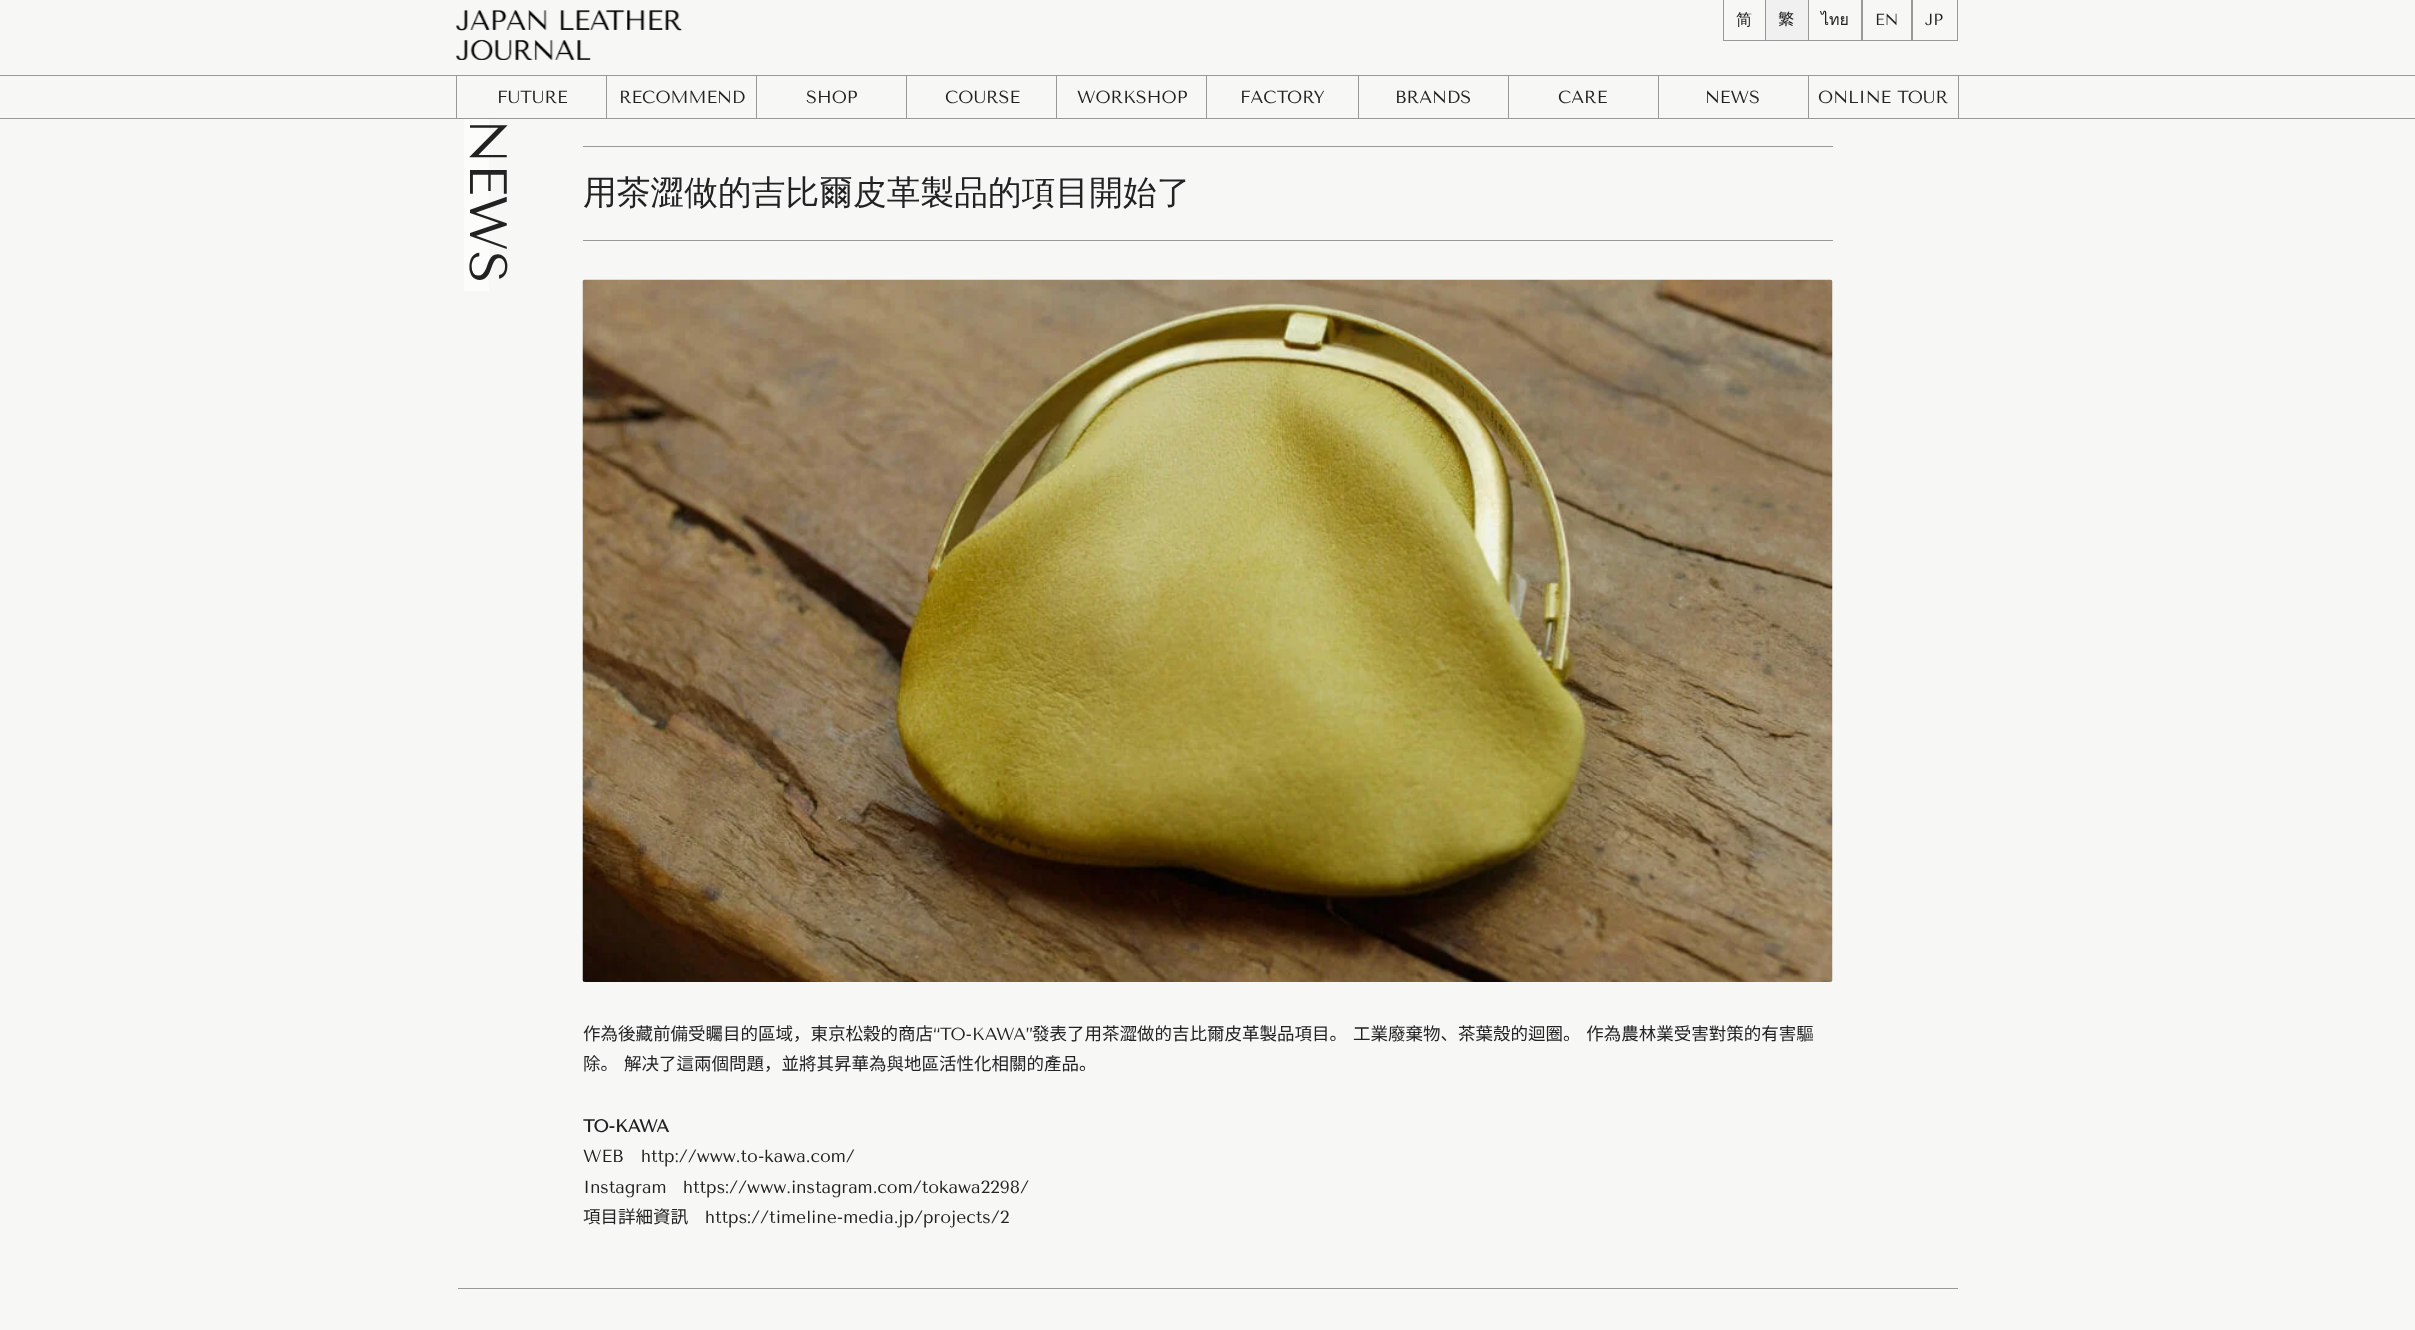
<svg xmlns="http://www.w3.org/2000/svg" width="2415" height="1330" viewBox="0 0 2415 1330">
  <rect width="100%" height="100%" fill="rgb(247,247,246)"/>
  <rect x="0" y="75" width="2415" height="1" fill="rgb(153,153,153)"/>
  <image x="456" y="10" width="226" height="50" href="pic1.png"/>
  <rect x="1723.5" y="-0.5" width="42" height="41" fill="none" stroke="rgb(153,153,153)"/>
  <text x="1736" y="25" font-family="WenQuanYi Zen Hei" font-size="16" font-weight="500" fill="rgb(34,34,34)">简</text>
  <rect x="1765.5" y="-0.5" width="43" height="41" fill="rgb(240,240,240)" stroke="rgb(153,153,153)"/>
  <text x="1778" y="25" font-family="Noto Sans JP" font-size="16" fill="rgb(34,34,34)">繁</text>
  <rect x="1808.5" y="-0.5" width="54" height="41" fill="none" stroke="rgb(153,153,153)"/>
  <text x="1821" y="25" font-family="Loma" font-size="16" fill="rgb(34,34,34)">ไทย</text>
  <rect x="1861.5" y="-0.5" width="51" height="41" fill="none" stroke="rgb(153,153,153)"/>
  <text x="1875" y="25" font-family="Tenor Sans" font-size="16" fill="rgb(34,34,34)">EN</text>
  <rect x="1911.5" y="-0.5" width="46" height="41" fill="none" stroke="rgb(153,153,153)"/>
  <text x="1925" y="25" font-family="Tenor Sans" font-size="16" fill="rgb(34,34,34)">JP</text>
  <rect x="0" y="118" width="2415" height="1" fill="rgb(153,153,153)"/>
  <rect x="456" y="76" width="1" height="42" fill="rgb(153,153,153)"/>
  <rect x="606" y="76" width="1" height="42" fill="rgb(153,153,153)"/>
  <text x="497" y="103" font-family="Tenor Sans" font-size="17.5" fill="rgb(34,34,34)">FUTURE</text>
  <rect x="756" y="76" width="1" height="42" fill="rgb(153,153,153)"/>
  <text x="619" y="103" font-family="Tenor Sans" font-size="17.5" fill="rgb(34,34,34)">RECOMMEND</text>
  <rect x="906" y="76" width="1" height="42" fill="rgb(153,153,153)"/>
  <text x="806" y="103" font-family="Tenor Sans" font-size="17.5" fill="rgb(34,34,34)">SHOP</text>
  <rect x="1056" y="76" width="1" height="42" fill="rgb(153,153,153)"/>
  <text x="945" y="103" font-family="Tenor Sans" font-size="17.5" fill="rgb(34,34,34)">COURSE</text>
  <rect x="1206" y="76" width="1" height="42" fill="rgb(153,153,153)"/>
  <text x="1077" y="103" font-family="Tenor Sans" font-size="17.5" fill="rgb(34,34,34)">WORKSHOP</text>
  <rect x="1358" y="76" width="1" height="42" fill="rgb(153,153,153)"/>
  <text x="1240" y="103" font-family="Tenor Sans" font-size="17.5" fill="rgb(34,34,34)">FACTORY</text>
  <rect x="1508" y="76" width="1" height="42" fill="rgb(153,153,153)"/>
  <text x="1395" y="103" font-family="Tenor Sans" font-size="17.5" fill="rgb(34,34,34)">BRANDS</text>
  <rect x="1658" y="76" width="1" height="42" fill="rgb(153,153,153)"/>
  <text x="1558" y="103" font-family="Tenor Sans" font-size="17.5" fill="rgb(34,34,34)">CARE</text>
  <rect x="1808" y="76" width="1" height="42" fill="rgb(153,153,153)"/>
  <text x="1705" y="103" font-family="Tenor Sans" font-size="17.5" fill="rgb(34,34,34)">NEWS</text>
  <rect x="1958" y="76" width="1" height="42" fill="rgb(153,153,153)"/>
  <text x="1818" y="103" font-family="Tenor Sans" font-size="17.5" fill="rgb(34,34,34)">ONLINE TOUR</text>
  <rect x="464" y="119" width="25" height="172" fill="rgb(252,252,251)"/>
  <text x="470" y="119" transform="rotate(90 470 119)" font-family="Tenor Sans" font-size="52.5" fill="rgb(34,34,34)">NEWS</text>
  <rect x="458" y="1288" width="1500" height="1" fill="rgb(153,153,153)"/>
  <rect x="583" y="146" width="1250" height="1" fill="rgb(153,153,153)"/>
  <rect x="583" y="240" width="1250" height="1" fill="rgb(153,153,153)"/>
  <text x="583" y="204" font-family="WenQuanYi Zen Hei" font-size="33.75" font-weight="500" fill="rgb(34,34,34)">用茶澀做的吉比爾皮革製品的項目開始了</text>
  <image x="582" y="279" width="1251" height="703" href="pic2.png"/>
  <text x="583" y="1040" font-family="Noto Sans JP" font-size="17.5" fill="rgb(34,34,34)">作為後藏前備受矚目的區域，東京松穀的商店</text>
  <text x="933" y="1040" font-family="Tenor Sans" font-size="17.5" fill="rgb(34,34,34)">“TO-KAWA”</text>
  <g font-family="Noto Sans JP" font-size="17.5" fill="rgb(34,34,34)">
    <text x="1032" y="1040" word-spacing="2">發表了用茶澀做的吉比爾皮革製品項目。 工業廢棄物、茶葉殼的迴圈。 作為農林業受害對策的有害驅</text>
    <text x="583" y="1070" word-spacing="2">除。 解决了這兩個問題，並將其昇華為與地區活性化相關的產品。</text>
  </g>
  <text x="583" y="1132" font-family="Tenor Sans" font-size="17.5" font-weight="bold" fill="rgb(34,34,34)">TO-KAWA</text>
  <g font-family="Tenor Sans" font-size="17.5" fill="rgb(34,34,34)">
    <text x="583" y="1162">WEB</text>
    <text x="641" y="1162">http://www.to-kawa.com/</text>
    <text x="583" y="1193">Instagram</text>
    <text x="683" y="1193">https://www.instagram.com/tokawa2298/</text>
  </g>
  <text x="583" y="1223" font-family="Noto Sans JP" font-size="17.5" fill="rgb(34,34,34)">項目詳細資訊</text>
  <text x="705" y="1223" font-family="Tenor Sans" font-size="17.5" fill="rgb(34,34,34)">https://timeline-media.jp/projects/2</text>
</svg>
